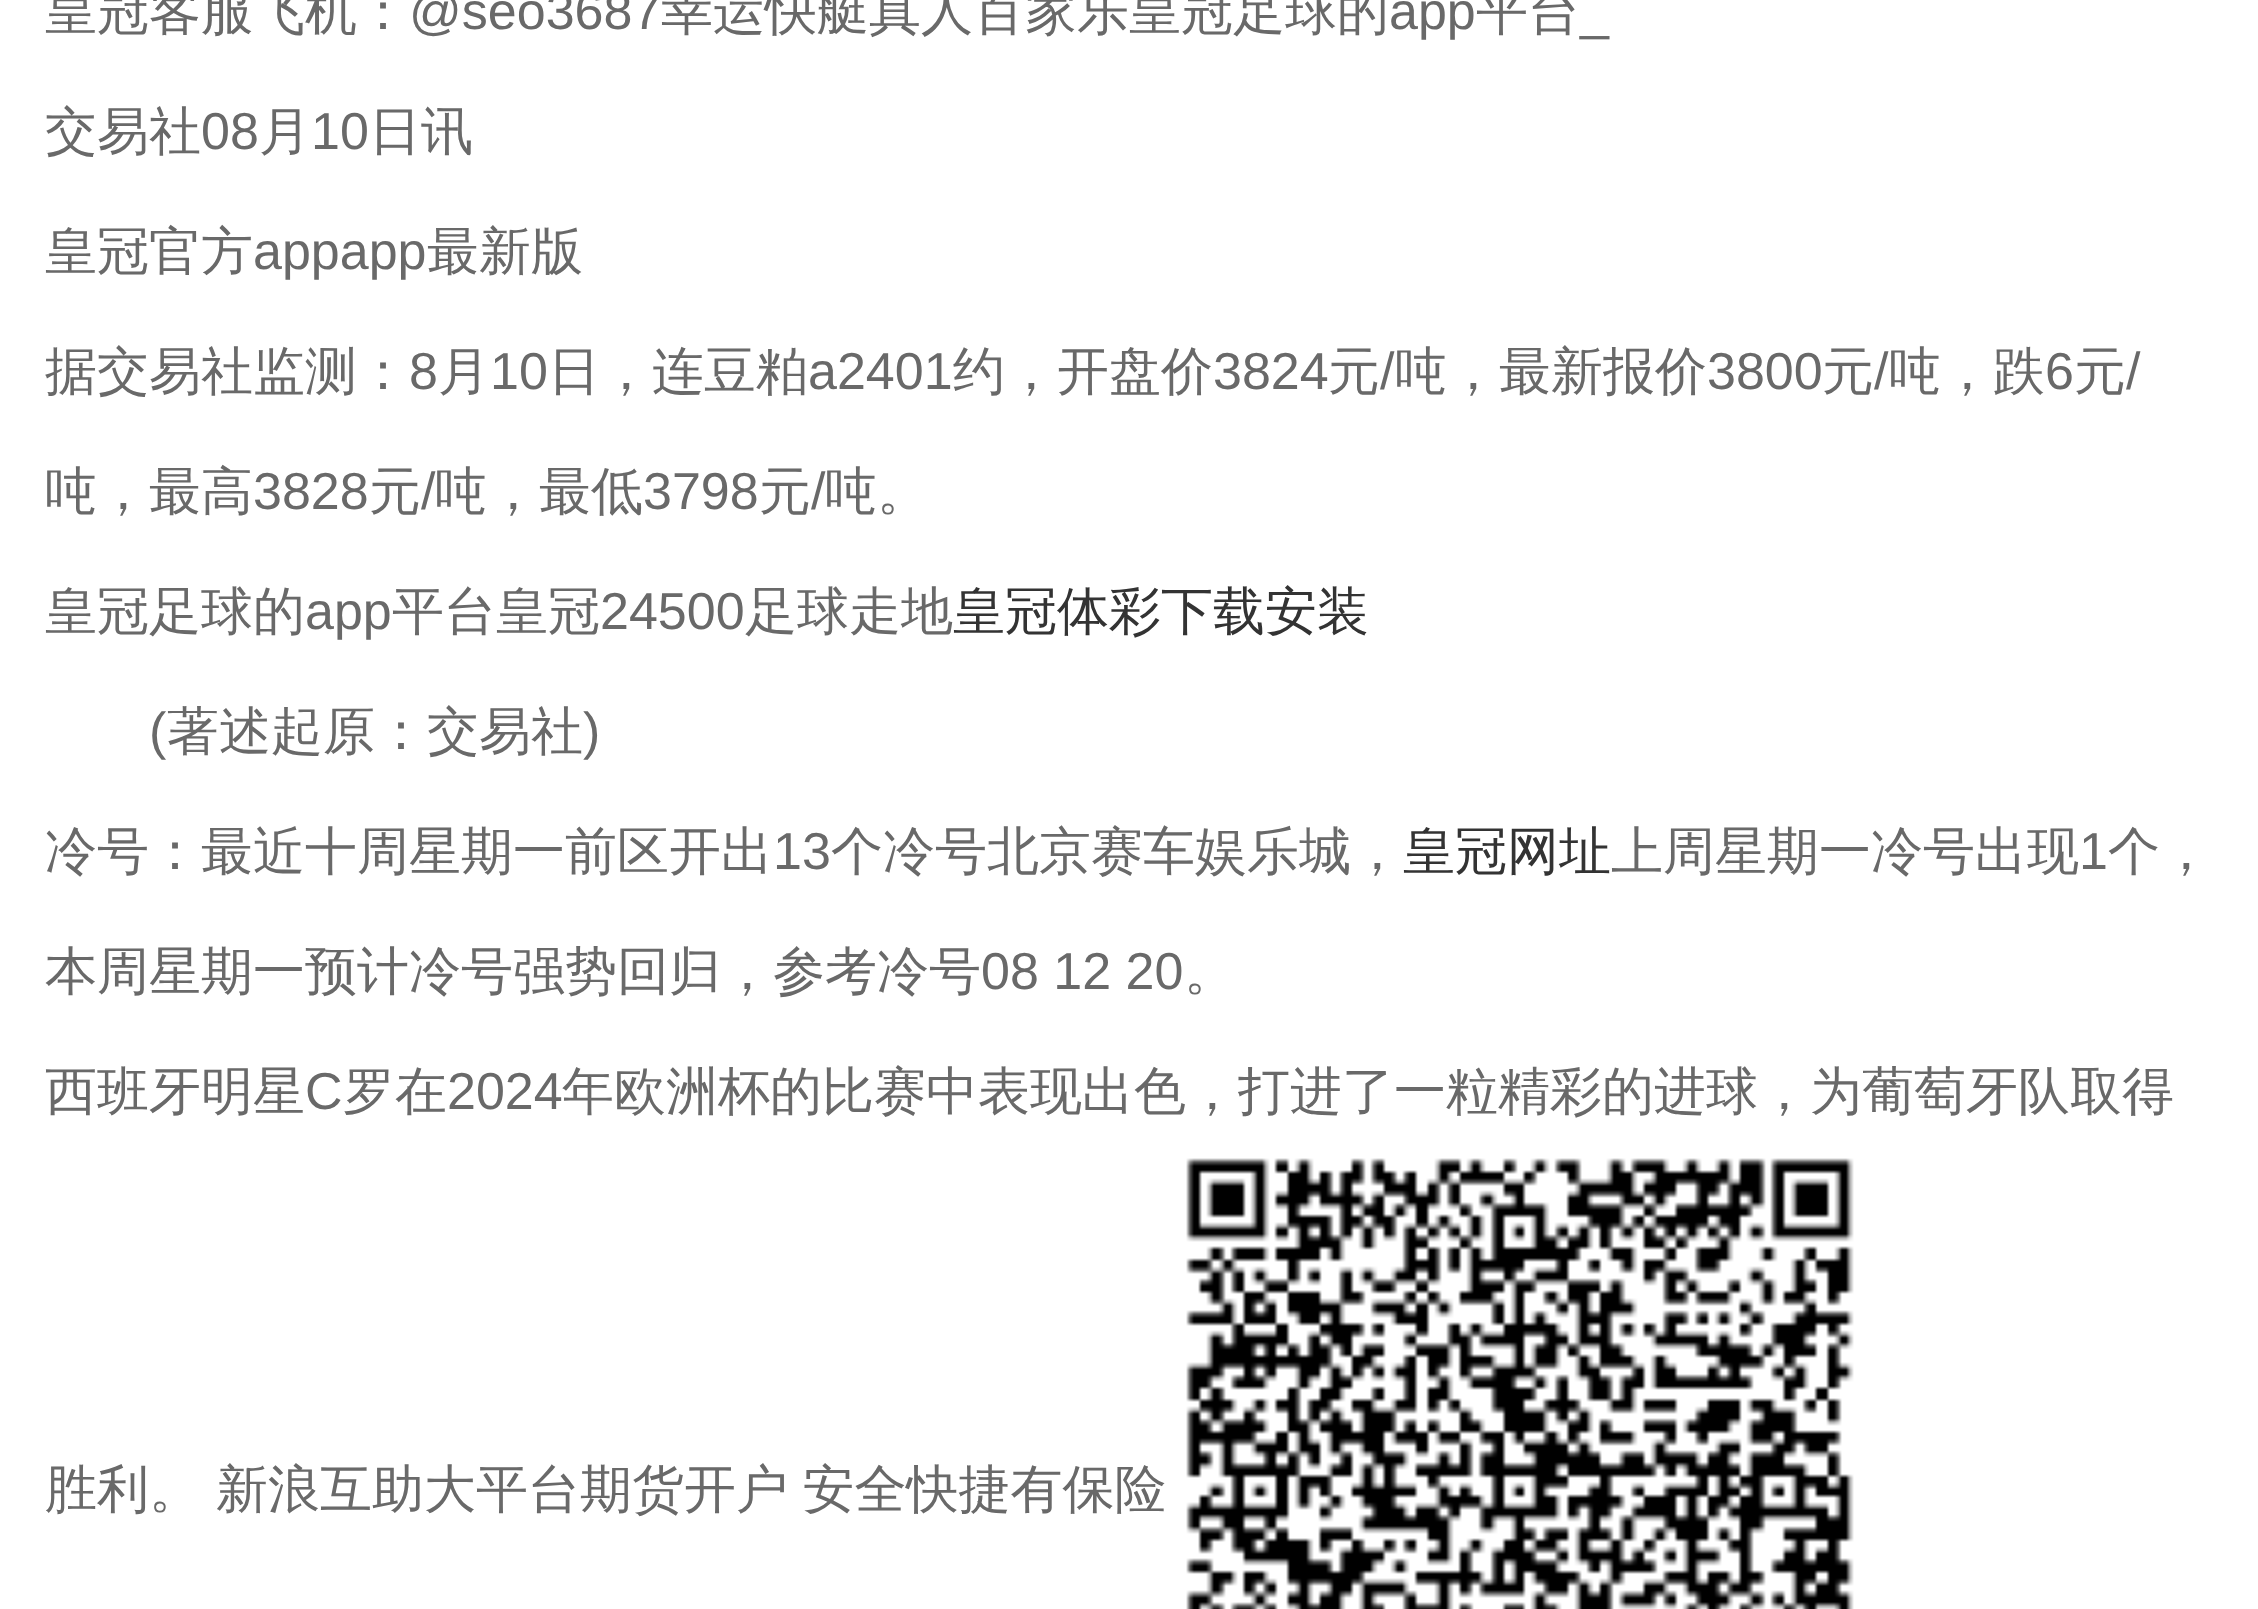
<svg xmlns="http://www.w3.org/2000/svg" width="2258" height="1609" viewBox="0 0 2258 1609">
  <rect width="100%" height="100%" fill="rgb(255,255,255)"/>
  <text x="45" y="29" font-family="WenQuanYi Zen Hei" font-size="52" font-weight="500" fill="rgb(105,105,105)">皇冠客服飞机：</text>
  <text x="409" y="29" font-family="Liberation Sans" font-size="52" fill="rgb(105,105,105)">@seo3687</text>
  <text x="661" y="29" font-family="WenQuanYi Zen Hei" font-size="52" font-weight="500" fill="rgb(105,105,105)">幸运快艇真人百家乐皇冠足球的</text>
  <text x="1389" y="29" font-family="Liberation Sans" font-size="52" fill="rgb(105,105,105)">app</text>
  <text x="1476" y="29" font-family="WenQuanYi Zen Hei" font-size="52" font-weight="500" fill="rgb(105,105,105)">平台</text>
  <text x="1580" y="29" font-family="Liberation Sans" font-size="52" fill="rgb(105,105,105)">_</text>
  <text x="45" y="149" font-family="WenQuanYi Zen Hei" font-size="52" font-weight="500" fill="rgb(105,105,105)">交易社</text>
  <text x="201" y="149" font-family="Liberation Sans" font-size="52" fill="rgb(105,105,105)">08</text>
  <text x="259" y="149" font-family="WenQuanYi Zen Hei" font-size="52" font-weight="500" fill="rgb(105,105,105)">月</text>
  <text x="311" y="149" font-family="Liberation Sans" font-size="52" fill="rgb(105,105,105)">10</text>
  <g font-family="WenQuanYi Zen Hei" font-size="52" font-weight="500" fill="rgb(105,105,105)">
    <text x="369" y="149">日讯</text>
    <text x="45" y="269">皇冠官方</text>
  </g>
  <text x="253" y="269" font-family="Liberation Sans" font-size="52" fill="rgb(105,105,105)">appapp</text>
  <g font-family="WenQuanYi Zen Hei" font-size="52" font-weight="500" fill="rgb(105,105,105)">
    <text x="427" y="269">最新版</text>
    <text x="45" y="389">据交易社监测：</text>
  </g>
  <text x="409" y="389" font-family="Liberation Sans" font-size="52" fill="rgb(105,105,105)">8</text>
  <text x="438" y="389" font-family="WenQuanYi Zen Hei" font-size="52" font-weight="500" fill="rgb(105,105,105)">月</text>
  <text x="490" y="389" font-family="Liberation Sans" font-size="52" fill="rgb(105,105,105)">10</text>
  <text x="548" y="389" font-family="WenQuanYi Zen Hei" font-size="52" font-weight="500" fill="rgb(105,105,105)">日，连豆粕</text>
  <text x="808" y="389" font-family="Liberation Sans" font-size="52" fill="rgb(105,105,105)">a2401</text>
  <text x="953" y="389" font-family="WenQuanYi Zen Hei" font-size="52" font-weight="500" fill="rgb(105,105,105)">约，开盘价</text>
  <text x="1213" y="389" font-family="Liberation Sans" font-size="52" fill="rgb(105,105,105)">3824</text>
  <text x="1328" y="389" font-family="WenQuanYi Zen Hei" font-size="52" font-weight="500" fill="rgb(105,105,105)">元</text>
  <text x="1380" y="389" font-family="Liberation Sans" font-size="52" fill="rgb(105,105,105)">/</text>
  <text x="1395" y="389" font-family="WenQuanYi Zen Hei" font-size="52" font-weight="500" fill="rgb(105,105,105)">吨，最新报价</text>
  <text x="1707" y="389" font-family="Liberation Sans" font-size="52" fill="rgb(105,105,105)">3800</text>
  <text x="1822" y="389" font-family="WenQuanYi Zen Hei" font-size="52" font-weight="500" fill="rgb(105,105,105)">元</text>
  <text x="1874" y="389" font-family="Liberation Sans" font-size="52" fill="rgb(105,105,105)">/</text>
  <text x="1889" y="389" font-family="WenQuanYi Zen Hei" font-size="52" font-weight="500" fill="rgb(105,105,105)">吨，跌</text>
  <text x="2045" y="389" font-family="Liberation Sans" font-size="52" fill="rgb(105,105,105)">6</text>
  <text x="2074" y="389" font-family="WenQuanYi Zen Hei" font-size="52" font-weight="500" fill="rgb(105,105,105)">元</text>
  <text x="2126" y="389" font-family="Liberation Sans" font-size="52" fill="rgb(105,105,105)">/</text>
  <text x="45" y="509" font-family="WenQuanYi Zen Hei" font-size="52" font-weight="500" fill="rgb(105,105,105)">吨，最高</text>
  <text x="253" y="509" font-family="Liberation Sans" font-size="52" fill="rgb(105,105,105)">3828</text>
  <text x="369" y="509" font-family="WenQuanYi Zen Hei" font-size="52" font-weight="500" fill="rgb(105,105,105)">元</text>
  <text x="421" y="509" font-family="Liberation Sans" font-size="52" fill="rgb(105,105,105)">/</text>
  <text x="435" y="509" font-family="WenQuanYi Zen Hei" font-size="52" font-weight="500" fill="rgb(105,105,105)">吨，最低</text>
  <text x="643" y="509" font-family="Liberation Sans" font-size="52" fill="rgb(105,105,105)">3798</text>
  <text x="759" y="509" font-family="WenQuanYi Zen Hei" font-size="52" font-weight="500" fill="rgb(105,105,105)">元</text>
  <text x="811" y="509" font-family="Liberation Sans" font-size="52" fill="rgb(105,105,105)">/</text>
  <g font-family="WenQuanYi Zen Hei" font-size="52" font-weight="500" fill="rgb(105,105,105)">
    <text x="825" y="509">吨。</text>
    <text x="45" y="629">皇冠足球的</text>
  </g>
  <text x="305" y="629" font-family="Liberation Sans" font-size="52" fill="rgb(105,105,105)">app</text>
  <text x="392" y="629" font-family="WenQuanYi Zen Hei" font-size="52" font-weight="500" fill="rgb(105,105,105)">平台皇冠</text>
  <text x="600" y="629" font-family="Liberation Sans" font-size="52" fill="rgb(105,105,105)">24500</text>
  <text x="745" y="629" font-family="WenQuanYi Zen Hei" font-size="52" font-weight="500" fill="rgb(105,105,105)">足球走地</text>
  <text x="953" y="629" font-family="WenQuanYi Zen Hei" font-size="52" font-weight="500" fill="rgb(51,51,51)">皇冠体彩下载安装</text>
  <text x="149" y="749" font-family="Liberation Sans" font-size="52" fill="rgb(105,105,105)">(</text>
  <text x="167" y="749" font-family="WenQuanYi Zen Hei" font-size="52" font-weight="500" fill="rgb(105,105,105)">著述起原：交易社</text>
  <text x="583" y="749" font-family="Liberation Sans" font-size="52" fill="rgb(105,105,105)">)</text>
  <text x="45" y="869" font-family="WenQuanYi Zen Hei" font-size="52" font-weight="500" fill="rgb(105,105,105)">冷号：最近十周星期一前区开出</text>
  <text x="773" y="869" font-family="Liberation Sans" font-size="52" fill="rgb(105,105,105)">13</text>
  <text x="831" y="869" font-family="WenQuanYi Zen Hei" font-size="52" font-weight="500" fill="rgb(105,105,105)">个冷号北京赛车娱乐城，</text>
  <text x="1403" y="869" font-family="WenQuanYi Zen Hei" font-size="52" font-weight="500" fill="rgb(51,51,51)">皇冠网址</text>
  <text x="1611" y="869" font-family="WenQuanYi Zen Hei" font-size="52" font-weight="500" fill="rgb(105,105,105)">上周星期一冷号出现</text>
  <text x="2079" y="869" font-family="Liberation Sans" font-size="52" fill="rgb(105,105,105)">1</text>
  <g font-family="WenQuanYi Zen Hei" font-size="52" font-weight="500" fill="rgb(105,105,105)">
    <text x="2108" y="869">个，</text>
    <text x="45" y="989">本周星期一预计冷号强势回归，参考冷号</text>
  </g>
  <text x="981" y="989" font-family="Liberation Sans" font-size="52" fill="rgb(105,105,105)">08 12 20</text>
  <g font-family="WenQuanYi Zen Hei" font-size="52" font-weight="500" fill="rgb(105,105,105)">
    <text x="1184" y="989">。</text>
    <text x="45" y="1109">西班牙明星</text>
  </g>
  <text x="305" y="1109" font-family="Liberation Sans" font-size="52" fill="rgb(105,105,105)">C</text>
  <text x="343" y="1109" font-family="WenQuanYi Zen Hei" font-size="52" font-weight="500" fill="rgb(105,105,105)">罗在</text>
  <text x="447" y="1109" font-family="Liberation Sans" font-size="52" fill="rgb(105,105,105)">2024</text>
  <g font-family="WenQuanYi Zen Hei" font-size="52" font-weight="500" fill="rgb(105,105,105)">
    <text x="562" y="1109">年欧洲杯的比赛中表现出色，打进了一粒精彩的进球，为葡萄牙队取得</text>
    <text x="45" y="1507">胜利。</text>
    <text x="216" y="1507" word-spacing="-1">新浪互助大平台期货开户 安全快捷有保险</text>
  </g>
  <image x="1186" y="1158" width="668" height="451" href="pic1.png"/>
</svg>
